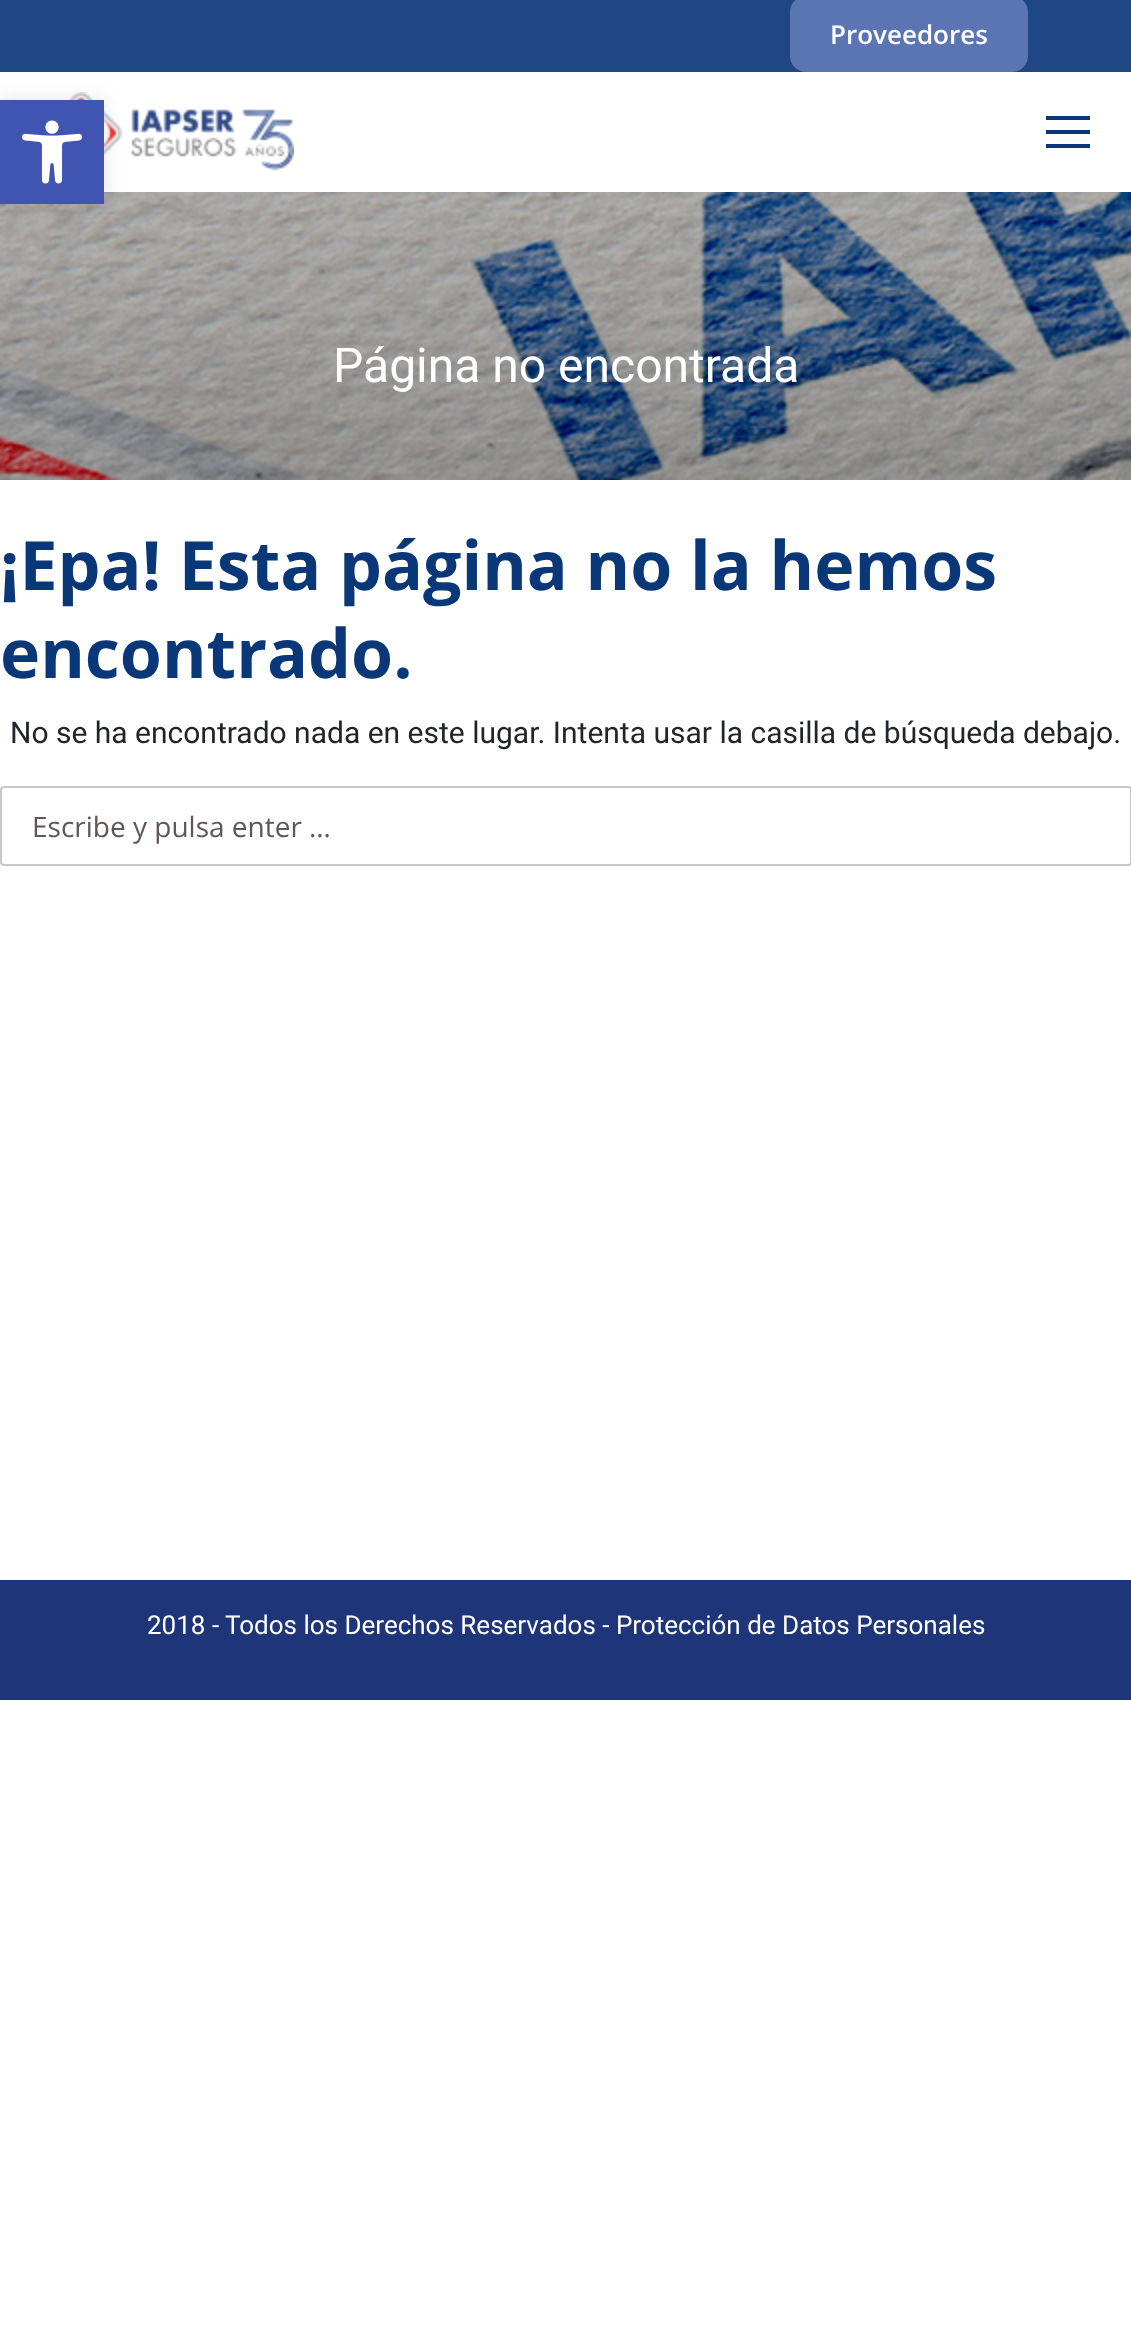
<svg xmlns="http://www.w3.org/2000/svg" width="1131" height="2332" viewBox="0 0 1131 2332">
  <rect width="100%" height="100%" fill="rgb(255,255,255)"/>
  <rect x="0" y="0" width="1131" height="72" fill="rgb(30,71,131)"/>
  <rect x="790" y="-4" width="238" height="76" rx="16" fill="rgb(91,117,178)"/>
  <text x="830" y="44" font-family="Open Sans" font-size="26" font-weight="600" fill="rgb(255,255,255)">Proveedores</text>
  <image x="67" y="92" width="227" height="79" href="pic1.png"/>
  <rect x="1046" y="116" width="44" height="4" fill="rgb(10,55,120)"/>
  <rect x="1046" y="130" width="44" height="4" fill="rgb(10,55,120)"/>
  <rect x="1046" y="144" width="44" height="4" fill="rgb(10,55,120)"/>
  <image x="0" y="192" width="1131" height="288" href="pic2.png"/>
  <text x="333" y="382" font-family="Roboto" font-size="48" fill="rgb(255,255,255)">Página no encontrada</text>
  <g font-family="Open Sans" font-size="68" font-weight="bold" fill="rgb(10,55,120)">
    <text>
      <tspan x="0" y="590">¡Epa! Esta página no la hemos</tspan>
      <tspan x="0" y="678">encontrado.</tspan>
    </text>
  </g>
  <text x="10" y="743" font-family="Roboto" font-size="30" fill="rgb(33,37,41)">No se ha encontrado nada en este lugar. Intenta usar la casilla de búsqueda debajo.</text>
  <rect x="1" y="787" width="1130" height="78" rx="3" fill="none" stroke="rgb(202,199,199)" stroke-width="2"/>
  <text x="32" y="837" font-family="Open Sans" font-size="28" fill="rgb(97,86,86)">Escribe y pulsa enter …</text>
  <rect x="0" y="1580" width="1131" height="120" fill="rgb(31,53,121)"/>
  <text x="147" y="1634" font-family="Roboto" font-size="26" fill="rgb(255,255,255)">2018 - Todos los Derechos Reservados - Protección de Datos Personales</text>
  <rect x="0" y="100" width="104" height="104" fill="rgba(0,0,0,0.1)" filter="blur(10px)"/>
  <rect x="0" y="100" width="104" height="104" fill="rgb(64,84,178)"/>
  <image x="22" y="120" width="61" height="64" href="pic3.png"/>
</svg>
